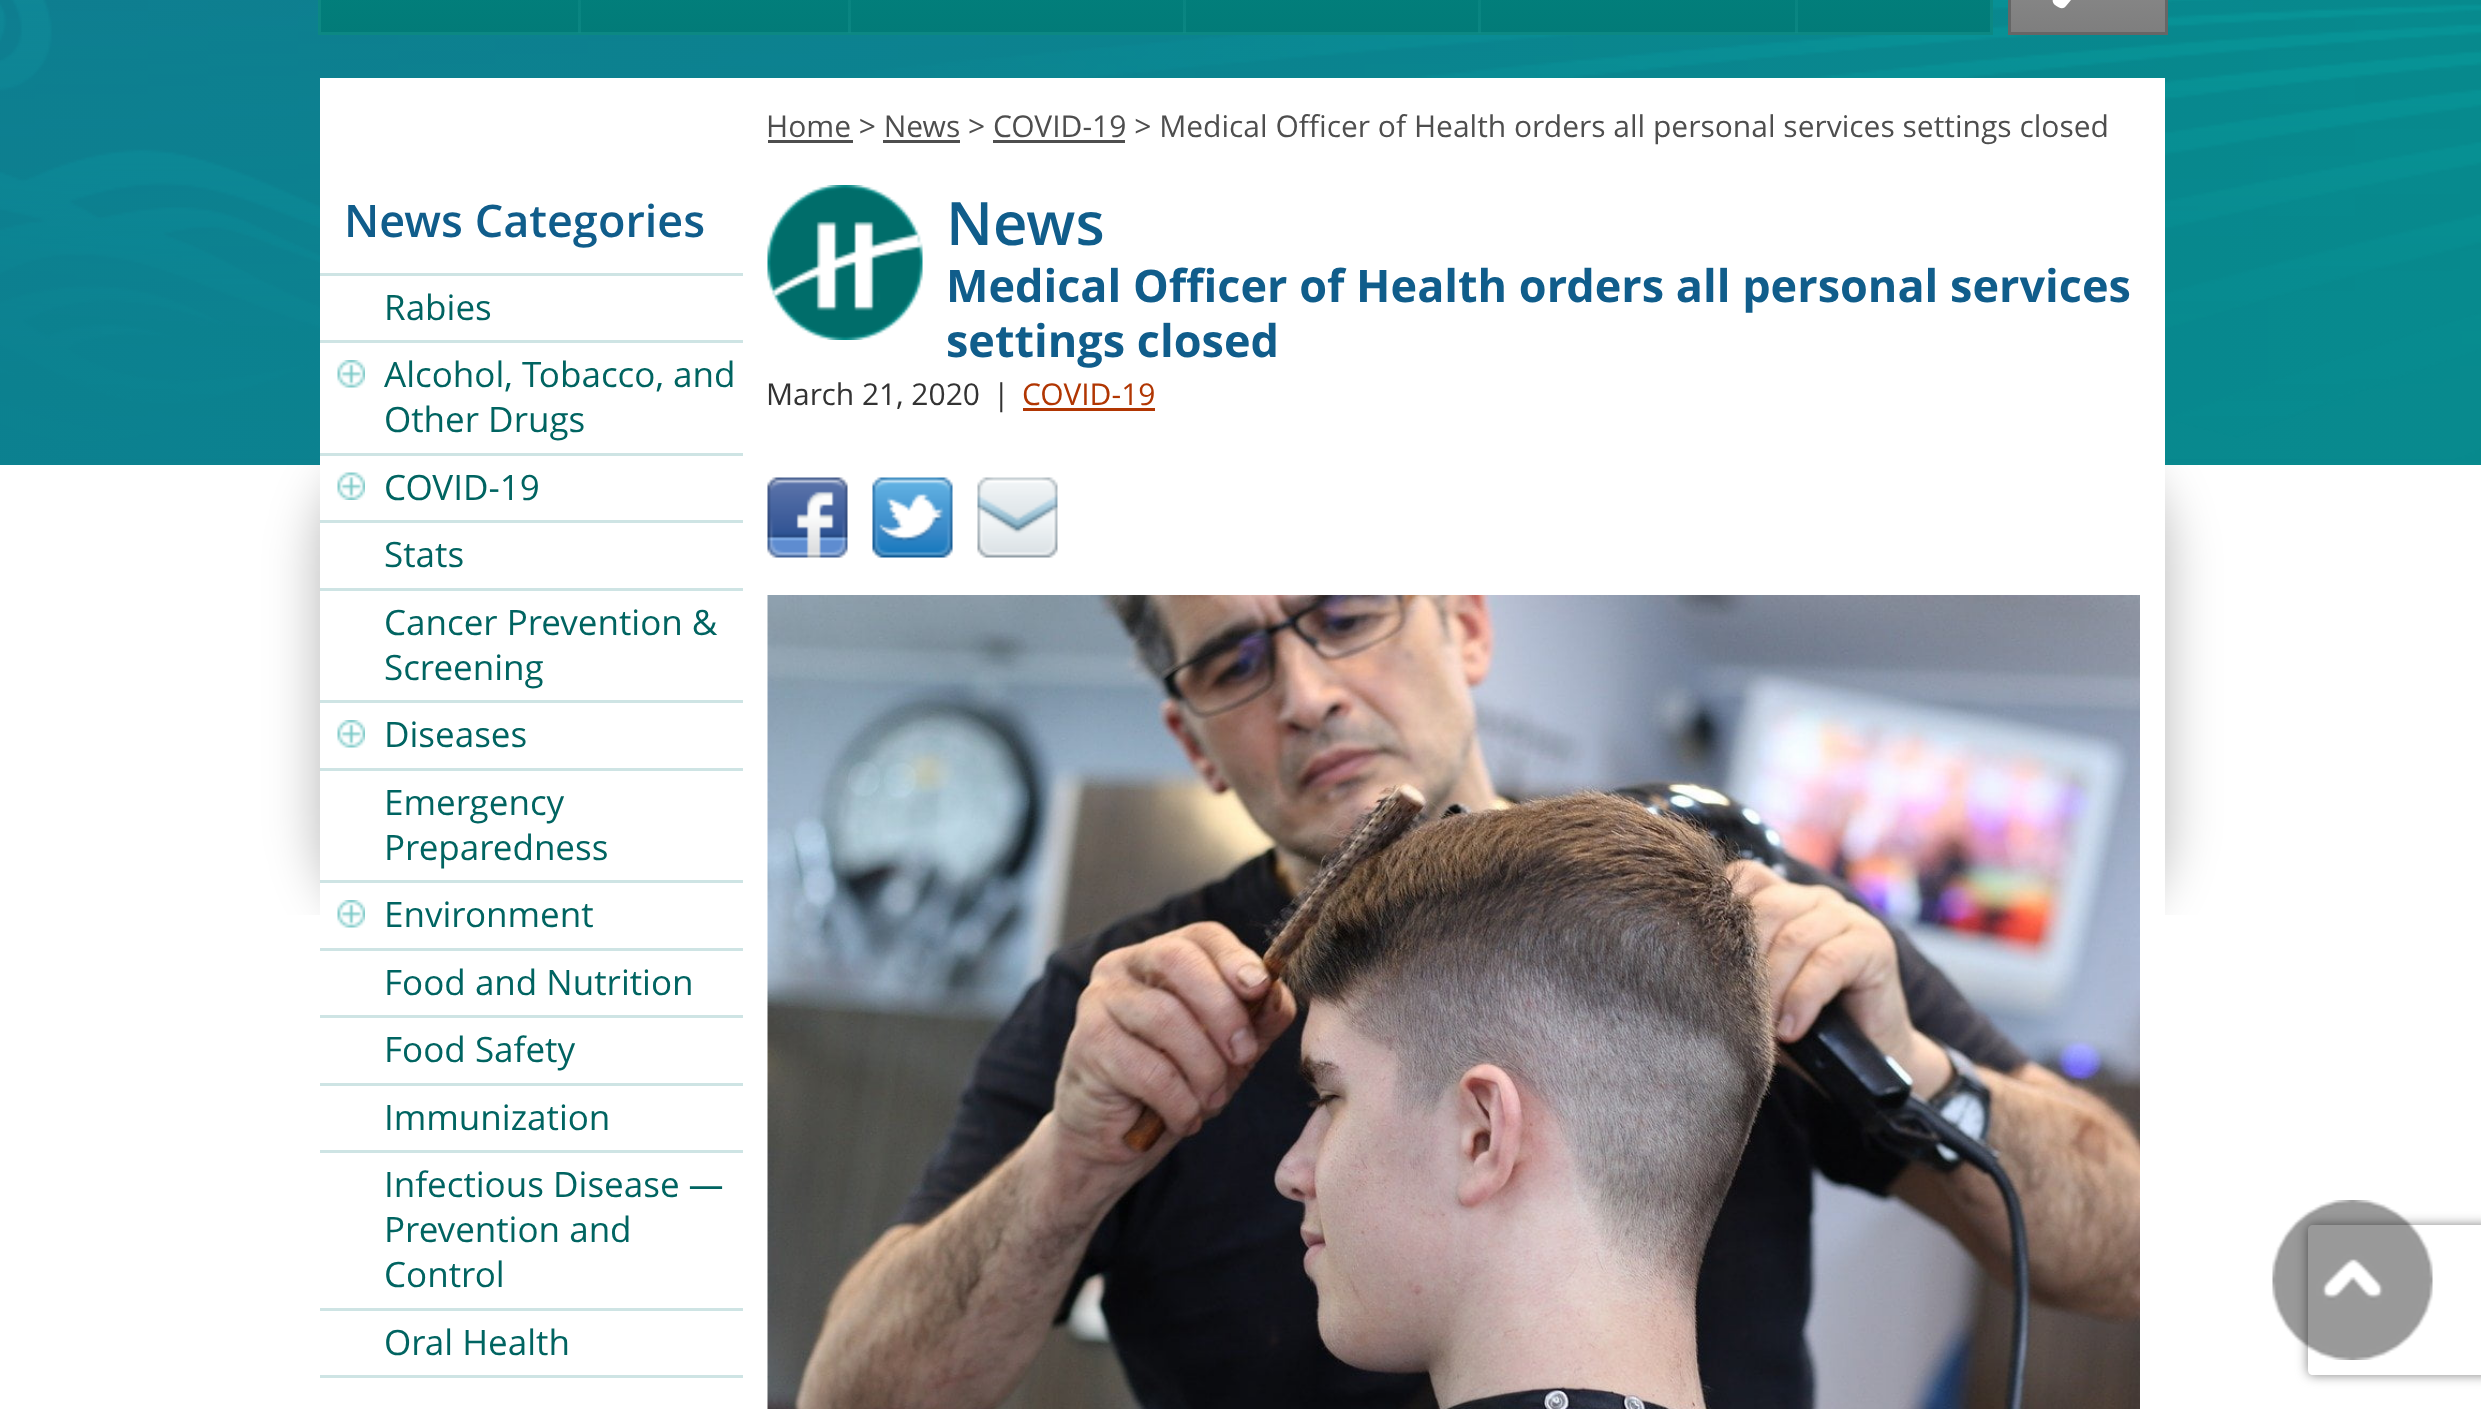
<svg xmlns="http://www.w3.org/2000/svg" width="2481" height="1409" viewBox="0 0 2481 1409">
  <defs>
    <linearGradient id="g1" gradientUnits="userSpaceOnUse" x1="1155" y1="-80" x2="1155" y2="33"><stop offset="0" stop-color="rgb(1,133,129)"/><stop offset="1" stop-color="rgb(2,123,120)"/></linearGradient>
    <linearGradient id="g2" gradientUnits="userSpaceOnUse" x1="579" y1="-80" x2="579" y2="33"><stop offset="0" stop-color="rgb(18,142,138)" stop-opacity="0.04"/><stop offset="1" stop-color="rgb(18,142,138)" stop-opacity="0.55"/></linearGradient>
    <linearGradient id="g3" gradientUnits="userSpaceOnUse" x1="849" y1="-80" x2="849" y2="33"><stop offset="0" stop-color="rgb(18,142,138)" stop-opacity="0.04"/><stop offset="1" stop-color="rgb(18,142,138)" stop-opacity="0.55"/></linearGradient>
    <linearGradient id="g4" gradientUnits="userSpaceOnUse" x1="1184" y1="-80" x2="1184" y2="33"><stop offset="0" stop-color="rgb(18,142,138)" stop-opacity="0.04"/><stop offset="1" stop-color="rgb(18,142,138)" stop-opacity="0.55"/></linearGradient>
    <linearGradient id="g5" gradientUnits="userSpaceOnUse" x1="1479" y1="-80" x2="1479" y2="33"><stop offset="0" stop-color="rgb(18,142,138)" stop-opacity="0.04"/><stop offset="1" stop-color="rgb(18,142,138)" stop-opacity="0.55"/></linearGradient>
    <linearGradient id="g6" gradientUnits="userSpaceOnUse" x1="1796" y1="-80" x2="1796" y2="33"><stop offset="0" stop-color="rgb(18,142,138)" stop-opacity="0.04"/><stop offset="1" stop-color="rgb(18,142,138)" stop-opacity="0.55"/></linearGradient>
    <linearGradient id="g7" gradientUnits="userSpaceOnUse" x1="2088" y1="-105" x2="2088" y2="33"><stop offset="0" stop-color="rgb(153,153,153)"/><stop offset="1" stop-color="rgb(126,126,126)"/></linearGradient>
    <clipPath id="clip1"><rect x="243" y="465" width="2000" height="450"/></clipPath>
    <clipPath id="clip2"><path d="M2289 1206H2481V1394H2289ZM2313 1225H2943C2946 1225 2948 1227 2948 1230V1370C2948 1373 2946 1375 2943 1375H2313C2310 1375 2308 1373 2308 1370V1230C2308 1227 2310 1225 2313 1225Z" clip-rule="evenodd"/></clipPath>
  </defs>
  <rect width="100%" height="100%" fill="rgb(255,255,255)"/>
  <image x="0" y="0" width="2481" height="465" href="pic1.png"/>
  <rect x="321" y="0" width="1669" height="32" fill="url(#g1)"/>
  <rect x="319.5" y="-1.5" width="1672" height="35" fill="none" stroke="rgb(12,136,131)" stroke-width="3"/>
  <rect x="578" y="0" width="3" height="33" fill="url(#g2)"/>
  <rect x="848" y="0" width="3" height="33" fill="url(#g3)"/>
  <rect x="1183" y="0" width="3" height="33" fill="url(#g4)"/>
  <rect x="1478" y="0" width="3" height="33" fill="url(#g5)"/>
  <rect x="1795" y="0" width="3" height="33" fill="url(#g6)"/>
  <rect x="2011" y="0" width="154" height="32" fill="url(#g7)"/>
  <rect x="2009.5" y="-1.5" width="157" height="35" fill="none" stroke="rgb(102,102,102)" stroke-width="3"/>
  <path d="M2066 6L2086-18C2092-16 2099-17 2105-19C2126-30 2121-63 2097-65C2092-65 2087-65 2082-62C2071-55 2066-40 2074-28L2060-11C2056-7 2049 0 2055 5C2059 8 2063 10 2066 6ZM2080-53C2095-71 2123-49 2109-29C2094-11 2065-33 2080-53Z" fill="rgb(255,255,255)"/>
  <g clip-path="url(#clip1)">
    <rect x="315" y="440" width="1050" height="500" rx="115" fill="rgba(0,0,0,0.25)" filter="blur(25px)"/>
    <rect x="1120" y="440" width="1050" height="500" rx="115" fill="rgba(0,0,0,0.25)" filter="blur(25px)"/>
  </g>
  <rect x="320" y="78" width="1845" height="837" fill="rgb(255,255,255)"/>
  <text x="344" y="237" font-family="Open Sans" font-size="45" font-weight="600" fill="rgb(16,93,139)">News Categories</text>
  <rect x="320" y="273" width="423" height="3" fill="rgb(206,228,228)"/>
  <text x="384" y="320" font-family="Open Sans" font-size="35" fill="rgb(0,100,97)">Rabies</text>
  <rect x="320" y="340" width="423" height="3" fill="rgb(206,228,228)"/>
  <image x="337" y="360" width="28" height="28" href="pic2.png"/>
  <g font-family="Open Sans" font-size="35" fill="rgb(0,100,97)">
    <text>
      <tspan x="384" y="387">Alcohol, Tobacco, and</tspan>
      <tspan x="384" y="432">Other Drugs</tspan>
    </text>
  </g>
  <rect x="320" y="453" width="423" height="3" fill="rgb(206,228,228)"/>
  <image x="337" y="472" width="28" height="28" href="pic3.png"/>
  <text x="384" y="500" font-family="Open Sans" font-size="35" fill="rgb(0,100,97)">COVID-19</text>
  <rect x="320" y="520" width="423" height="3" fill="rgb(206,228,228)"/>
  <text x="384" y="567" font-family="Open Sans" font-size="35" fill="rgb(0,100,97)">Stats</text>
  <rect x="320" y="588" width="423" height="3" fill="rgb(206,228,228)"/>
  <g font-family="Open Sans" font-size="35" fill="rgb(0,100,97)">
    <text>
      <tspan x="384" y="635">Cancer Prevention &amp;</tspan>
      <tspan x="384" y="680">Screening</tspan>
    </text>
  </g>
  <rect x="320" y="700" width="423" height="3" fill="rgb(206,228,228)"/>
  <image x="337" y="720" width="28" height="28" href="pic2.png"/>
  <text x="384" y="747" font-family="Open Sans" font-size="35" fill="rgb(0,100,97)">Diseases</text>
  <rect x="320" y="768" width="423" height="3" fill="rgb(206,228,228)"/>
  <g font-family="Open Sans" font-size="35" fill="rgb(0,100,97)">
    <text>
      <tspan x="384" y="815">Emergency</tspan>
      <tspan x="384" y="860">Preparedness</tspan>
    </text>
  </g>
  <rect x="320" y="880" width="423" height="3" fill="rgb(206,228,228)"/>
  <image x="337" y="900" width="28" height="28" href="pic2.png"/>
  <text x="384" y="927" font-family="Open Sans" font-size="35" fill="rgb(0,100,97)">Environment</text>
  <rect x="320" y="948" width="423" height="3" fill="rgb(206,228,228)"/>
  <text x="384" y="995" font-family="Open Sans" font-size="35" fill="rgb(0,100,97)">Food and Nutrition</text>
  <rect x="320" y="1015" width="423" height="3" fill="rgb(206,228,228)"/>
  <text x="384" y="1062" font-family="Open Sans" font-size="35" fill="rgb(0,100,97)">Food Safety</text>
  <rect x="320" y="1083" width="423" height="3" fill="rgb(206,228,228)"/>
  <text x="384" y="1130" font-family="Open Sans" font-size="35" fill="rgb(0,100,97)">Immunization</text>
  <rect x="320" y="1150" width="423" height="3" fill="rgb(206,228,228)"/>
  <g font-family="Open Sans" font-size="35" fill="rgb(0,100,97)">
    <text>
      <tspan x="384" y="1197">Infectious Disease —</tspan>
      <tspan x="384" y="1242">Prevention and</tspan>
      <tspan x="384" y="1287">Control</tspan>
    </text>
  </g>
  <rect x="320" y="1308" width="423" height="3" fill="rgb(206,228,228)"/>
  <text x="384" y="1355" font-family="Open Sans" font-size="35" fill="rgb(0,100,97)">Oral Health</text>
  <rect x="320" y="1375" width="423" height="3" fill="rgb(206,228,228)"/>
  <rect x="768" y="140" width="85" height="3" fill="rgb(78,78,78)"/>
  <text x="766" y="137" font-family="Open Sans" font-size="30" fill="rgb(78,78,78)">Home &gt; News &gt; COVID-19 &gt; Medical Officer of Health orders all personal services settings closed</text>
  <rect x="883" y="140" width="77" height="3" fill="rgb(78,78,78)"/>
  <rect x="993" y="140" width="132" height="3" fill="rgb(78,78,78)"/>
  <image x="767" y="185" width="156" height="155" href="pic4.png"/>
  <text x="946" y="245" font-family="Open Sans" font-size="60" font-weight="600" fill="rgb(16,93,139)">News</text>
  <g font-family="Open Sans" font-size="45" font-weight="bold" fill="rgb(16,93,139)">
    <text>
      <tspan x="946" y="302">Medical Officer of Health orders all personal services</tspan>
      <tspan x="946" y="357">settings closed</tspan>
    </text>
  </g>
  <g font-family="Open Sans" font-size="30" fill="rgb(51,51,51)">
    <text x="766" y="405">March 21, 2020</text>
    <text x="993" y="405">|</text>
  </g>
  <text x="1022" y="405" font-family="Open Sans" font-size="30" fill="rgb(177,54,2)">COVID-19</text>
  <rect x="1023" y="408" width="132" height="3" fill="rgb(177,54,2)"/>
  <image x="767" y="477" width="81" height="81" href="pic5.png"/>
  <image x="872" y="477" width="81" height="81" href="pic6.png"/>
  <image x="977" y="477" width="81" height="81" href="pic7.png"/>
  <image x="767" y="595" width="1373" height="814" href="pic8.png"/>
  <g clip-path="url(#clip2)">
    <rect x="2308" y="1225" width="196" height="150" rx="5" fill="rgb(128,128,128)" filter="blur(6px)"/>
  </g>
  <image x="2272" y="1200" width="161" height="160" href="pic9.png"/>
</svg>
